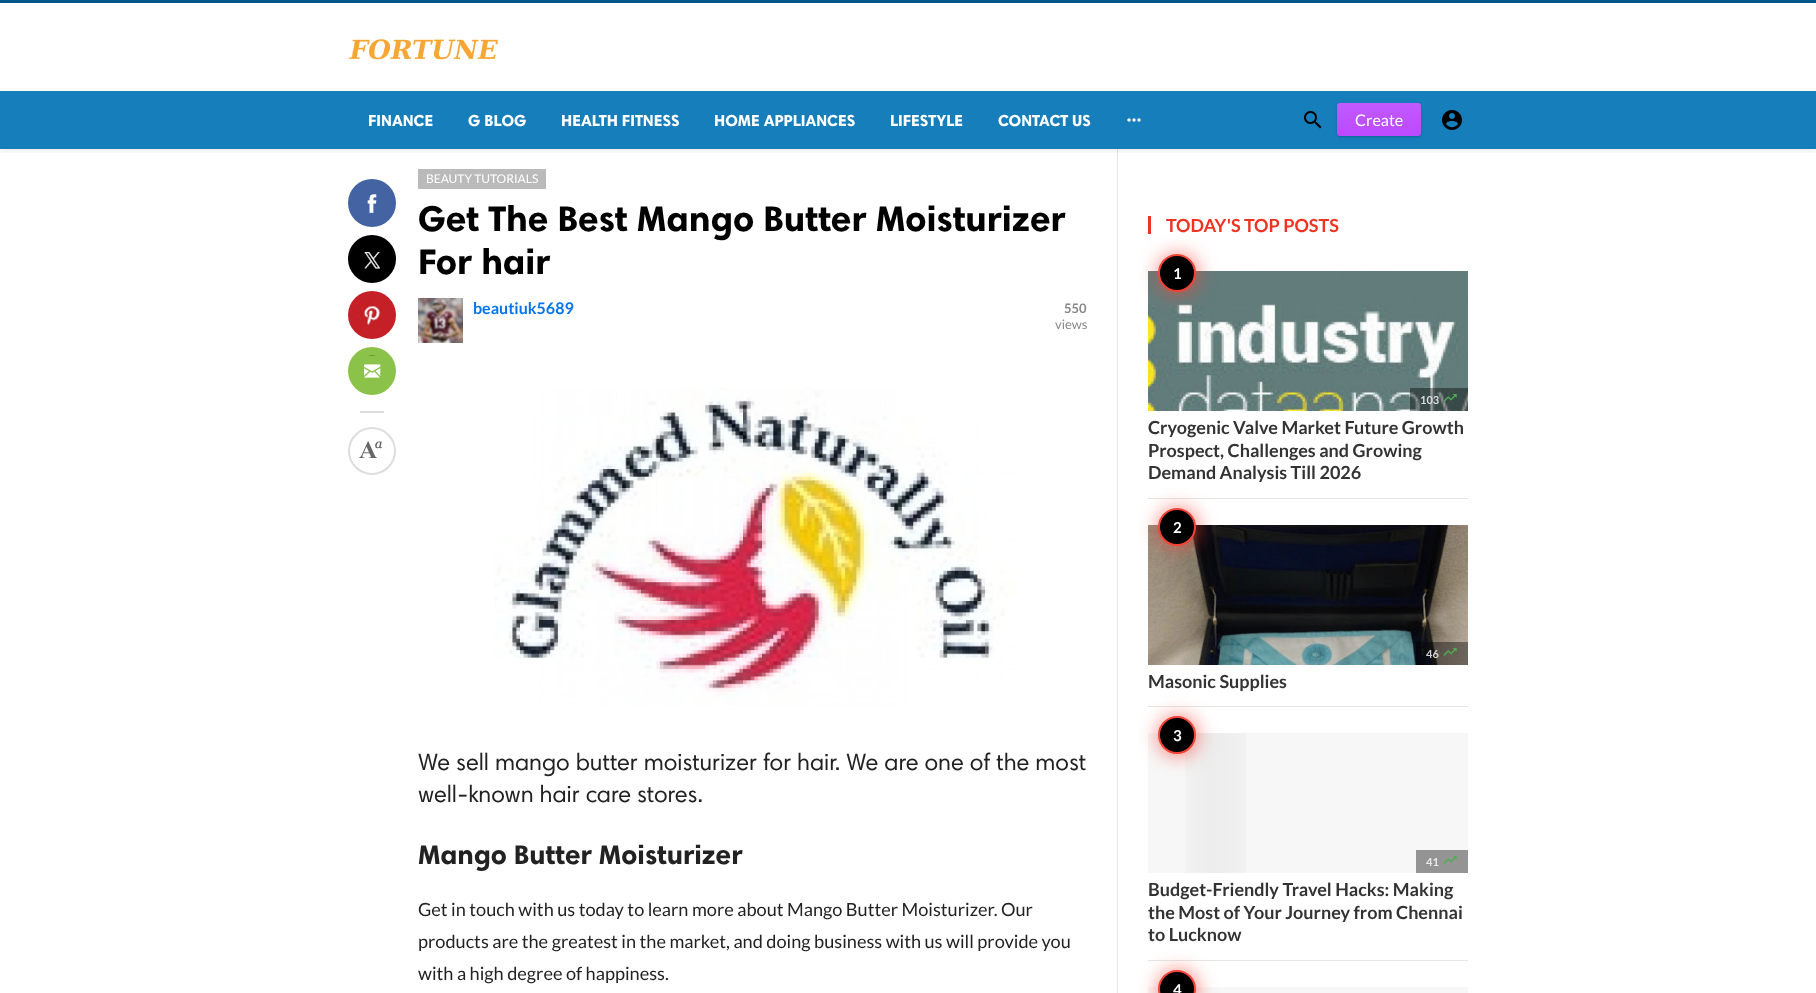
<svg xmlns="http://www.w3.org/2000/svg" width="1816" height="993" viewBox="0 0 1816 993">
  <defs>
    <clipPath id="clip1"><rect x="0" y="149" width="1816" height="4"/></clipPath>
    <linearGradient id="g1" gradientUnits="userSpaceOnUse" x1="1379" y1="103" x2="1379" y2="136"><stop offset="0" stop-color="rgb(193,90,255)"/><stop offset="1" stop-color="rgb(188,73,255)"/></linearGradient>
  </defs>
  <rect width="100%" height="100%" fill="rgb(255,255,255)"/>
  <rect x="1117" y="149" width="1" height="844" fill="rgb(227,227,227)"/>
  <g clip-path="url(#clip1)">
    <rect x="0" y="1" width="1816" height="149" fill="rgba(0,0,0,0.1)" filter="blur(4px)"/>
  </g>
  <rect x="0" y="0" width="1816" height="3" fill="rgb(0,85,138)"/>
  <image x="348" y="39" width="150" height="21" href="pic1.png"/>
  <rect x="0" y="91" width="1816" height="58" fill="rgb(23,126,188)"/>
  <g font-family="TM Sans" font-size="16" font-weight="bold" fill="rgb(255,255,255)">
    <text x="368" y="126">FINANCE</text>
    <text x="468" y="126">G BLOG</text>
    <text x="561" y="126">HEALTH FITNESS</text>
    <text x="714" y="126">HOME APPLIANCES</text>
    <text x="890" y="126">LIFESTYLE</text>
    <text x="998" y="126">CONTACT US</text>
  </g>
  <image x="1127" y="118" width="14" height="4" href="pic2.png"/>
  <image x="1304" y="111" width="18" height="18" href="pic3.png"/>
  <rect x="1337" y="104" width="84" height="33" rx="3" fill="rgba(0,0,0,0.2)" filter="blur(1px)"/>
  <rect x="1337" y="103" width="84" height="33" rx="3" fill="url(#g1)"/>
  <text x="1355" y="126" font-family="Lato" font-size="16" fill="rgb(255,255,255)">Create</text>
  <image x="1442" y="110" width="20" height="20" href="pic4.png"/>
  <circle cx="372" cy="203" r="24" fill="rgb(67,99,162)"/>
  <image x="367" y="194" width="10" height="19" href="pic5.png"/>
  <circle cx="372" cy="259" r="24" fill="rgb(0,0,0)"/>
  <image x="364" y="251" width="16" height="18" href="pic6.png"/>
  <circle cx="372" cy="315" r="24" fill="rgb(197,32,39)"/>
  <image x="358" y="301" width="23" height="26" href="pic7.png"/>
  <circle cx="372" cy="371" r="24" fill="rgb(139,195,74)"/>
  <image x="364" y="355" width="17" height="23" href="pic8.png"/>
  <rect x="360" y="411" width="24" height="2" fill="rgb(221,221,221)"/>
  <circle cx="372" cy="451" r="23" fill="none" stroke="rgb(221,221,221)" stroke-width="2"/>
  <image x="359" y="441" width="23" height="17" href="pic9.png"/>
  <rect x="418" y="169" width="128" height="20" fill="rgb(186,186,186)"/>
  <text x="426" y="183" font-family="Lato" font-size="12" fill="rgb(255,255,255)">BEAUTY TUTORIALS</text>
  <g font-family="TM Sans" font-size="36" font-weight="bold" fill="rgb(0,0,0)">
    <text>
      <tspan x="418" y="231">Get The Best Mango Butter Moisturizer</tspan>
      <tspan x="418" y="274">For hair</tspan>
    </text>
  </g>
  <image x="418" y="298" width="45" height="45" href="pic10.png"/>
  <text x="473" y="314" font-family="Lato" font-size="16" font-weight="bold" fill="rgb(5,116,238)">beautiuk5689</text>
  <text x="1064" y="313" font-family="Lato" font-size="13" font-weight="bold" fill="rgb(136,136,136)">550</text>
  <text x="1055" y="329" font-family="Lato" font-size="13" fill="rgb(136,136,136)">views</text>
  <image x="494" y="387" width="521" height="319" href="pic11.png"/>
  <g font-family="TM Sans" font-size="24" fill="rgb(34,34,34)">
    <text>
      <tspan x="418" y="770">We sell mango butter moisturizer for hair. We are one of the most</tspan>
      <tspan x="418" y="802">well-known hair care stores.</tspan>
    </text>
  </g>
  <text x="418" y="864" font-family="TM Sans" font-size="27.25" font-weight="bold" fill="rgb(34,34,34)">Mango Butter Moisturizer</text>
  <g font-family="Lato" font-size="18.15" fill="rgb(34,34,34)">
    <text>
      <tspan x="418" y="916">Get in touch with us today to learn more about Mango Butter Moisturizer. Our</tspan>
      <tspan x="418" y="948">products are the greatest in the market, and doing business with us will provide you</tspan>
      <tspan x="418" y="980">with a high degree of happiness.</tspan>
    </text>
  </g>
  <rect x="1148" y="216" width="3" height="18" fill="rgb(238,51,34)"/>
  <text x="1166" y="232" font-family="Lato" font-size="18" font-weight="bold" fill="rgb(238,51,34)">TODAY'S TOP POSTS</text>
  <rect x="1148" y="498" width="320" height="1" fill="rgb(230,230,230)"/>
  <image x="1148" y="271" width="320" height="140" href="pic12.png"/>
  <rect x="1159" y="255" width="38" height="38" rx="19" fill="rgba(244,67,54,0.75)" filter="blur(10px)"/>
  <circle cx="1177" cy="273" r="18" fill="rgb(0,0,0)" stroke="rgb(244,67,54)" stroke-width="2"/>
  <text x="1173" y="279" font-family="Lato" font-size="15" font-weight="bold" fill="rgb(255,255,255)">1</text>
  <rect x="1410" y="388" width="58" height="23" fill="rgba(0,0,0,0.4)"/>
  <text x="1420" y="404" font-family="Lato" font-size="11" font-weight="bold" fill="rgb(219,221,221)">103</text>
  <image x="1443" y="394" width="14" height="8" href="pic13.png"/>
  <g font-family="Lato" font-size="18" font-weight="bold" fill="rgb(51,51,51)">
    <text>
      <tspan x="1148" y="434">Cryogenic Valve Market Future Growth</tspan>
      <tspan x="1148" y="457">Prospect, Challenges and Growing</tspan>
      <tspan x="1148" y="479">Demand Analysis Till 2026</tspan>
    </text>
  </g>
  <rect x="1148" y="706" width="320" height="1" fill="rgb(230,230,230)"/>
  <image x="1148" y="525" width="320" height="140" href="pic14.png"/>
  <rect x="1159" y="509" width="38" height="38" rx="19" fill="rgba(244,67,54,0.75)" filter="blur(10px)"/>
  <circle cx="1177" cy="527" r="18" fill="rgb(0,0,0)" stroke="rgb(244,67,54)" stroke-width="2"/>
  <text x="1173" y="533" font-family="Lato" font-size="15" font-weight="bold" fill="rgb(255,255,255)">2</text>
  <rect x="1416" y="642" width="52" height="23" fill="rgba(0,0,0,0.4)"/>
  <text x="1426" y="658" font-family="Lato" font-size="11" font-weight="bold" fill="rgb(212,211,211)">46</text>
  <image x="1443" y="648" width="14" height="8" href="pic15.png"/>
  <text x="1148" y="688" font-family="Lato" font-size="18" font-weight="bold" fill="rgb(51,51,51)">Masonic Supplies</text>
  <rect x="1148" y="960" width="320" height="1" fill="rgb(230,230,230)"/>
  <rect x="1148" y="733" width="320" height="140" fill="rgb(247,247,247)"/>
  <image x="1185" y="733" width="61" height="140" href="pic16.png"/>
  <rect x="1159" y="717" width="38" height="38" rx="19" fill="rgba(244,67,54,0.75)" filter="blur(10px)"/>
  <circle cx="1177" cy="735" r="18" fill="rgb(0,0,0)" stroke="rgb(244,67,54)" stroke-width="2"/>
  <text x="1173" y="741" font-family="Lato" font-size="15" font-weight="bold" fill="rgb(255,255,255)">3</text>
  <rect x="1416" y="850" width="52" height="23" fill="rgb(148,148,148)"/>
  <text x="1426" y="866" font-family="Lato" font-size="11" font-weight="bold" fill="rgb(234,234,234)">41</text>
  <image x="1443" y="856" width="14" height="8" href="pic17.png"/>
  <g font-family="Lato" font-size="18" font-weight="bold" fill="rgb(51,51,51)">
    <text>
      <tspan x="1148" y="896">Budget-Friendly Travel Hacks: Making</tspan>
      <tspan x="1148" y="919">the Most of Your Journey from Chennai</tspan>
      <tspan x="1148" y="941">to Lucknow</tspan>
    </text>
  </g>
  <rect x="1148" y="987" width="320" height="6" fill="rgb(247,247,247)"/>
  <rect x="1159" y="971" width="38" height="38" rx="19" fill="rgba(244,67,54,0.75)" filter="blur(10px)"/>
  <circle cx="1177" cy="989" r="18" fill="rgb(0,0,0)" stroke="rgb(244,67,54)" stroke-width="2"/>
  <text x="1173" y="995" font-family="Lato" font-size="15" font-weight="bold" fill="rgb(255,255,255)">4</text>
</svg>
